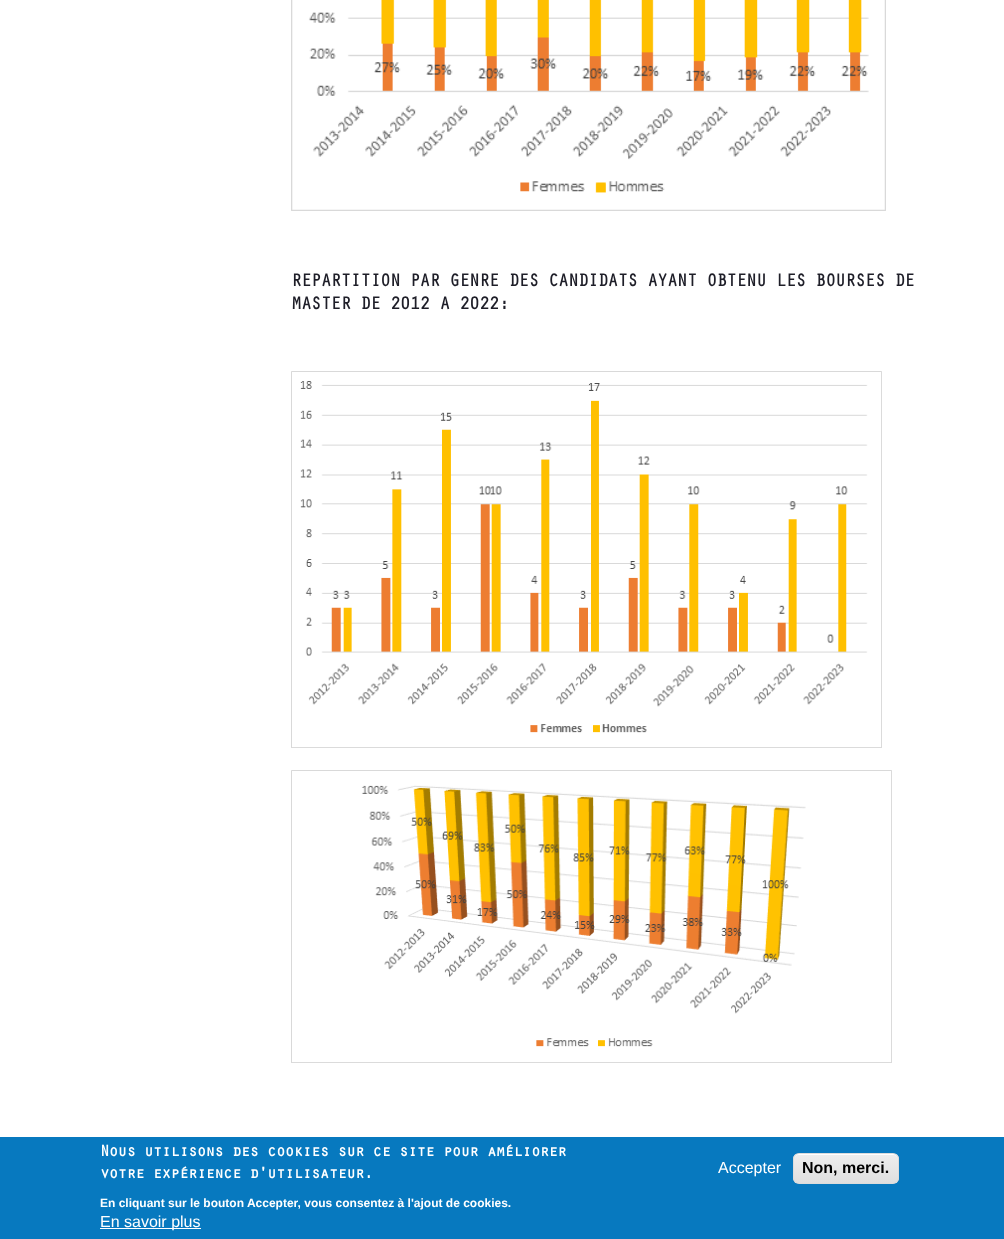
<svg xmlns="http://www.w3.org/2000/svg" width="1004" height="1239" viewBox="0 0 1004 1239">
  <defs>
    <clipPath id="clip1"><rect x="793" y="1153" width="106" height="31" rx="6"/></clipPath>
    <linearGradient id="g1" gradientUnits="userSpaceOnUse" x1="846" y1="1154" x2="846" y2="1183"><stop offset="0.05" stop-color="rgb(237,237,237)"/><stop offset="1" stop-color="rgb(223,223,223)"/></linearGradient>
  </defs>
  <rect width="100%" height="100%" fill="rgb(255,255,255)"/>
  <image x="291" y="0" width="595" height="211" href="pic1.png"/>
  <g font-family="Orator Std" font-size="18" font-weight="bold" letter-spacing="-0.9" fill="rgb(30,30,40)">
    <text>
      <tspan x="291" y="286">REPARTITION PAR GENRE DES CANDIDATS AYANT OBTENU LES BOURSES DE</tspan>
      <tspan x="291" y="309">MASTER DE 2012 A 2022:</tspan>
    </text>
  </g>
  <image x="291" y="371" width="591" height="377" href="pic2.png"/>
  <image x="291" y="770" width="601" height="293" href="pic3.png"/>
  <rect x="0" y="1137" width="1004" height="102" fill="rgb(7,121,191)"/>
  <g font-family="Orator Std" font-size="16" font-weight="bold" letter-spacing="-0.8" fill="rgb(255,255,255)">
    <text>
      <tspan x="100" y="1156">Nous utilisons des cookies sur ce site pour améliorer</tspan>
      <tspan x="100" y="1178">votre expérience d'utilisateur.</tspan>
    </text>
  </g>
  <text x="100" y="1207" font-family="Liberation Sans" font-size="12" font-weight="bold" fill="rgb(255,255,255)">En cliquant sur le bouton Accepter, vous consentez à l'ajout de cookies.</text>
  <rect x="100" y="1228" width="101" height="1" fill="rgb(255,255,255)"/>
  <g font-family="Liberation Sans" font-size="16" fill="rgb(255,255,255)">
    <text x="100" y="1227">En savoir plus</text>
    <text x="718" y="1173">Accepter</text>
  </g>
  <g clip-path="url(#clip1)">
    <rect x="793" y="1154" width="106" height="29" fill="url(#g1)"/>
  </g>
  <path d="M799 1155H893C896 1155 898 1157 898 1160C898 1150 883 1154 877 1154H815C809 1154 794 1150 794 1160C794 1157 796 1155 799 1155Z" fill="rgb(255,255,255)"/>
  <rect x="793.5" y="1153.5" width="105" height="30" rx="5.5" fill="none" stroke="rgb(220,220,220)"/>
  <text x="802" y="1173" font-family="Liberation Sans" font-size="16" font-weight="bold" fill="rgb(0,0,0)">Non, merci.</text>
</svg>
